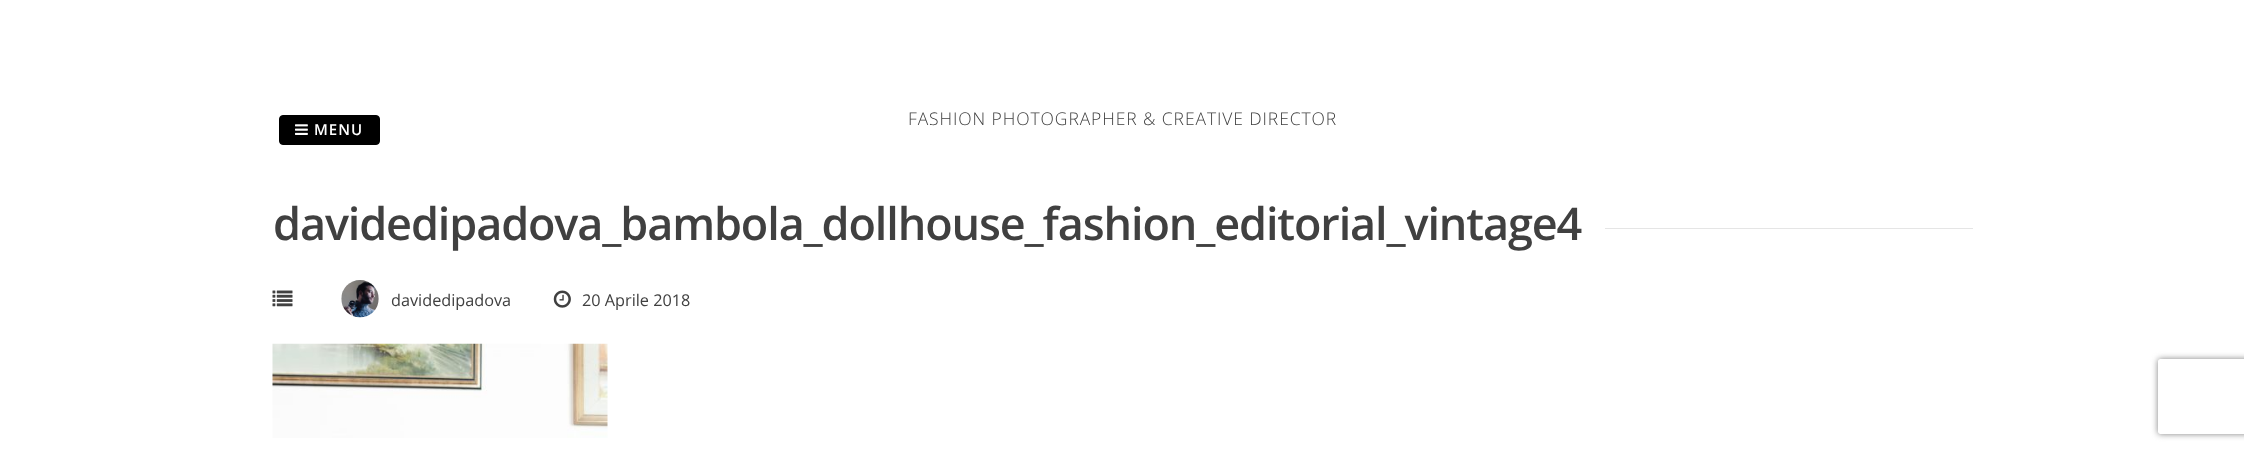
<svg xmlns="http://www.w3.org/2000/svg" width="2244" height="451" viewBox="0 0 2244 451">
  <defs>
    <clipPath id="clip1"><path d="M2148 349H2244V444H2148ZM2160.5 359H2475.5C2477 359 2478 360 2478 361.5V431.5C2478 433 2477 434 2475.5 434H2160.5C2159 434 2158 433 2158 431.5V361.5C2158 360 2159 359 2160.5 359Z" clip-rule="evenodd"/></clipPath>
  </defs>
  <rect width="100%" height="100%" fill="rgb(255,255,255)"/>
  <text x="908" y="125" font-family="Open Sans" font-size="17.5" font-weight="300" letter-spacing="0.9" fill="rgb(64,64,64)">FASHION PHOTOGRAPHER &amp; CREATIVE DIRECTOR</text>
  <rect x="279.5" y="115.5" width="100" height="29" rx="3.5" fill="rgb(0,0,0)" stroke="rgb(0,0,0)"/>
  <image x="295" y="124" width="13" height="11" href="pic1.png"/>
  <text x="314" y="135" font-family="Open Sans" font-size="15" font-weight="600" letter-spacing="1" fill="rgb(255,255,255)">MENU</text>
  <text x="273" y="240" font-family="Open Sans" font-size="45" font-weight="600" letter-spacing="-1.12" fill="rgb(64,64,64)">davidedipadova_bambola_dollhouse_fashion_editorial_vintage4</text>
  <rect x="1605" y="228" width="368" height="1" fill="rgb(229,229,229)"/>
  <image x="272" y="290" width="21" height="17" href="pic2.png"/>
  <image x="341" y="280" width="38" height="38" href="pic3.png"/>
  <text x="391" y="306" font-family="Open Sans" font-size="16.25" fill="rgb(64,64,64)">davidedipadova</text>
  <image x="553" y="290" width="18" height="18" href="pic4.png"/>
  <text x="582" y="306" font-family="Open Sans" font-size="16.25" fill="rgb(64,64,64)">20 Aprile 2018</text>
  <image x="272" y="343" width="336" height="95" href="pic5.png"/>
  <g clip-path="url(#clip1)">
    <rect x="2158" y="359" width="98" height="75" rx="2.5" fill="rgb(128,128,128)" filter="blur(3px)"/>
  </g>
</svg>
